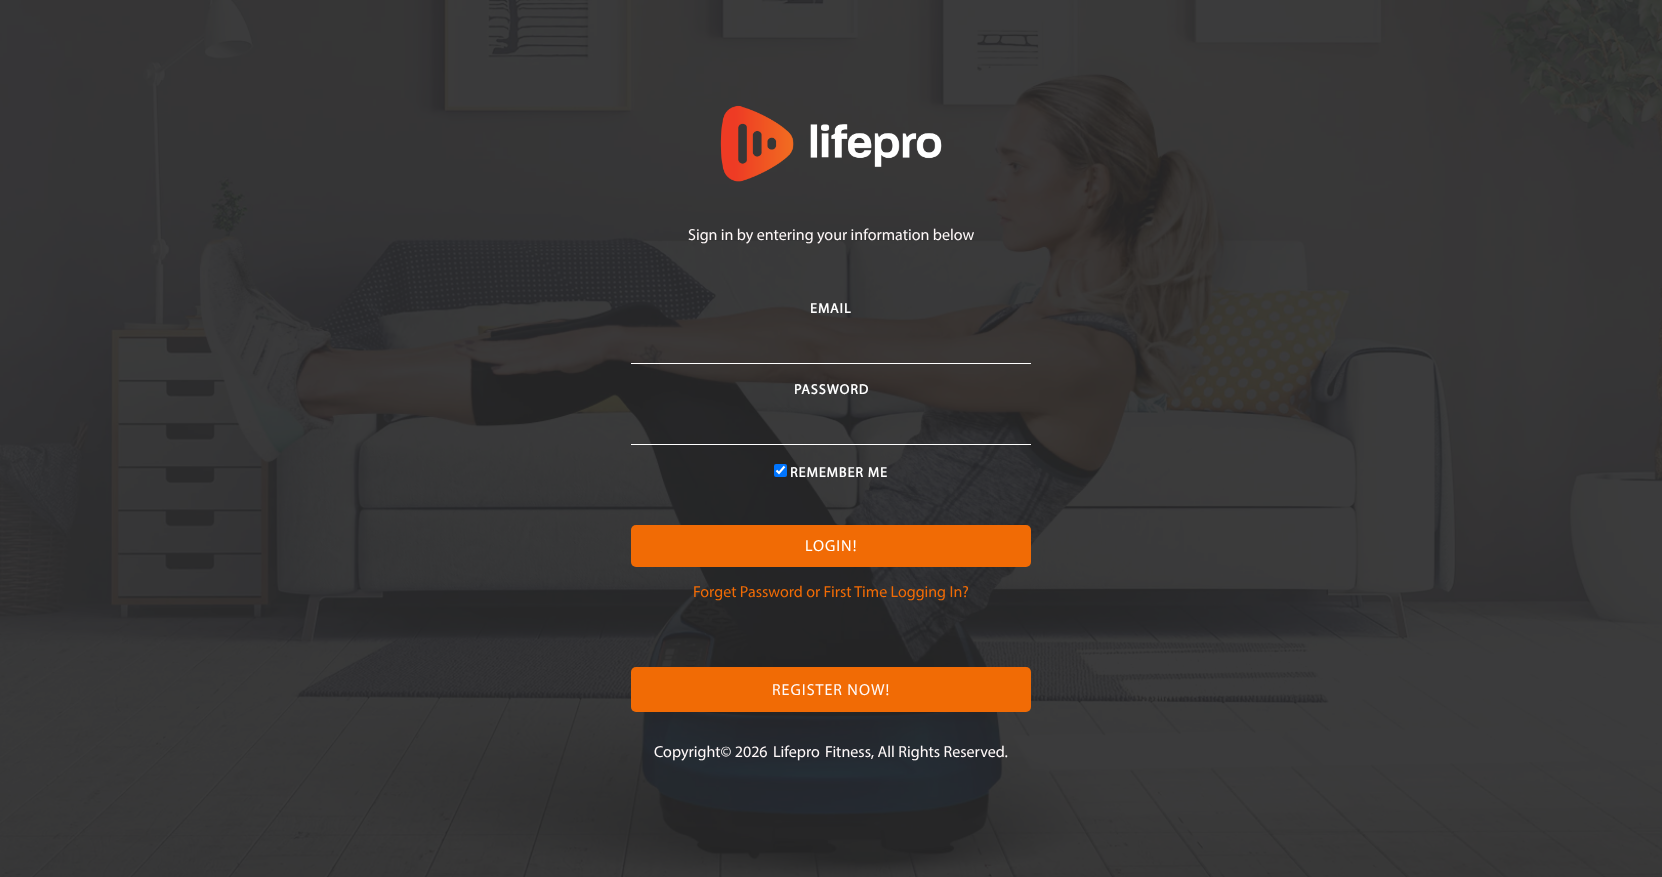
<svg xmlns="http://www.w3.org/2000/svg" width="1662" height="877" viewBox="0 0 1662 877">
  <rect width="100%" height="100%" fill="rgb(255,255,255)"/>
  <image x="0" y="0" width="1662" height="877" href="pic1.png"/>
  <image x="720" y="105" width="222" height="77" href="pic2.png"/>
  <text x="688" y="240" font-family="Myriad" font-size="16" fill="rgb(255,249,249)">Sign in by entering your information below</text>
  <text x="810" y="313" font-family="Myriad" font-size="14" font-weight="bold" letter-spacing="1" fill="rgb(255,255,255)">EMAIL</text>
  <rect x="631" y="363" width="400" height="1" fill="rgb(255,255,255)"/>
  <text x="794" y="394" font-family="Myriad" font-size="14" font-weight="bold" letter-spacing="1" fill="rgb(255,255,255)">PASSWORD</text>
  <rect x="631" y="444" width="400" height="1" fill="rgb(255,255,255)"/>
  <rect x="774" y="464" width="13" height="13" rx="2" fill="rgb(0,117,255)"/>
  <path d="M776.5 470.5L779 473L784.5 466.5" fill="none" stroke="rgb(255,255,255)" stroke-width="2.1"/>
  <text x="790" y="477" font-family="Myriad" font-size="14" font-weight="bold" letter-spacing="1" fill="rgb(255,255,255)">REMEMBER ME</text>
  <rect x="631" y="525" width="400" height="42" rx="5" fill="rgb(241,107,5)"/>
  <text x="805" y="551" font-family="Myriad" font-size="16" letter-spacing="1" fill="rgb(255,255,255)">LOGIN!</text>
  <text x="693" y="597" font-family="Myriad" font-size="16" fill="rgb(241,107,5)">Forget Password or First Time Logging In?</text>
  <rect x="631" y="667" width="400" height="45" rx="5" fill="rgb(241,107,5)"/>
  <text x="772" y="695" font-family="Myriad" font-size="16" letter-spacing="1" fill="rgb(255,249,249)">REGISTER NOW!</text>
  <g font-family="Myriad" font-size="16" fill="rgb(255,249,249)">
    <text x="654" y="757">Copyright© 2026</text>
    <text x="773" y="757">Lifepro</text>
    <text x="825" y="757">Fitness, All Rights Reserved.</text>
  </g>
</svg>
